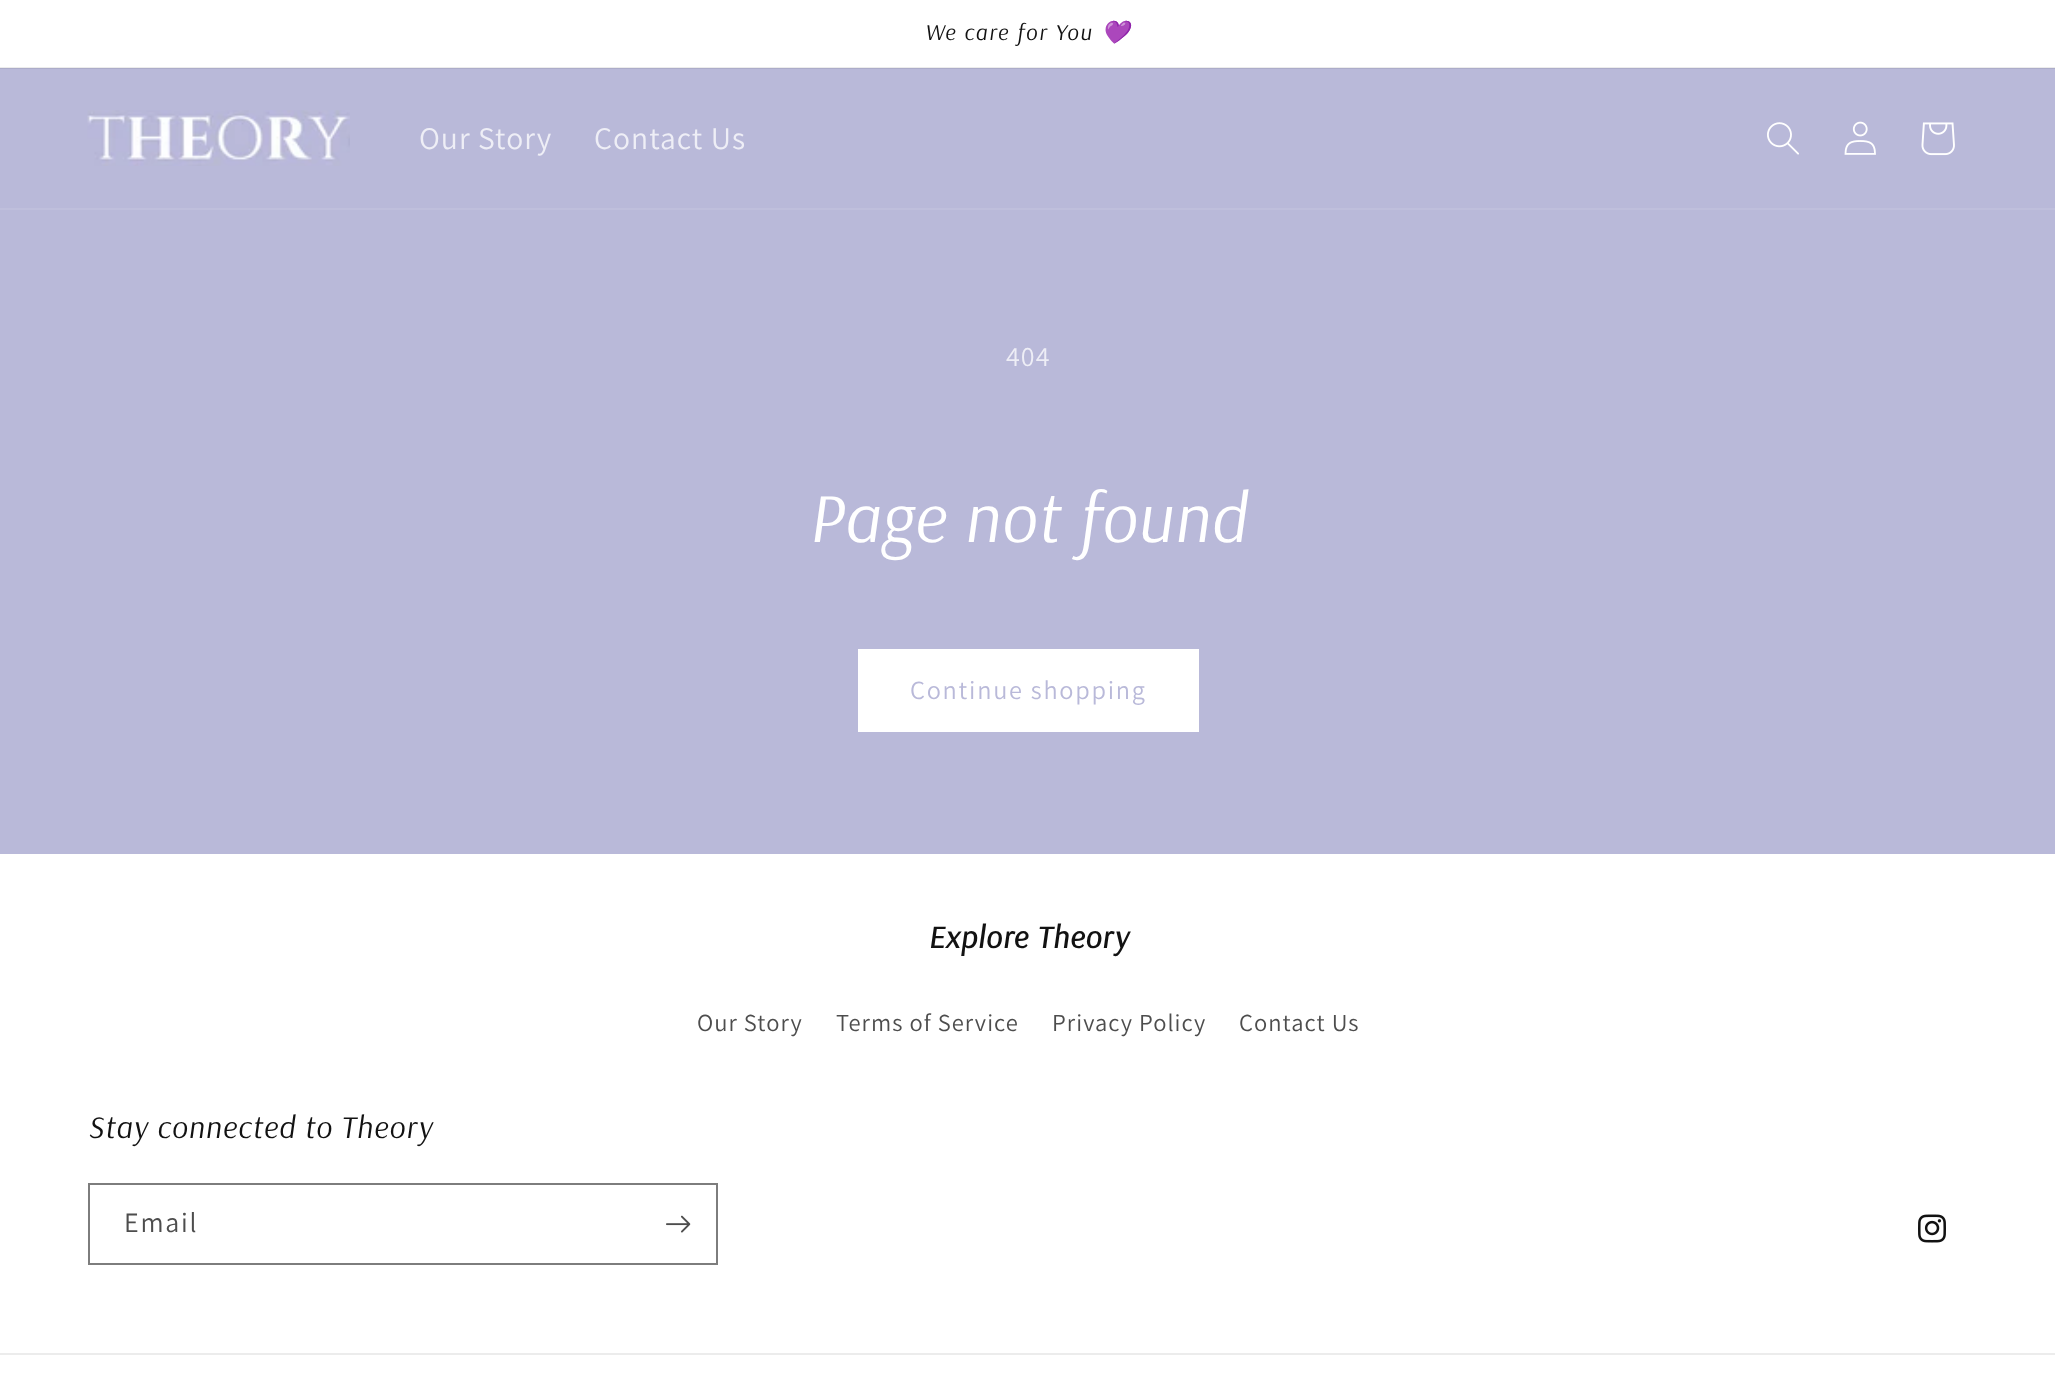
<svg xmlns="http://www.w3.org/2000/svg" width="2055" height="1399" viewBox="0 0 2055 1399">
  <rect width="100%" height="100%" fill="rgb(185,185,217)"/>
  <rect x="0" y="68" width="2055" height="1" fill="rgb(172,172,201)"/>
  <rect x="0" y="0" width="2055" height="67" fill="rgb(255,255,255)"/>
  <rect x="0" y="67" width="2055" height="1" fill="rgb(236,236,236)"/>
  <text x="925" y="40" font-family="Arsenal" font-size="22.75" font-style="italic" letter-spacing="1.75" fill="rgb(18,18,18)">We care for You</text>
  <text x="1101" y="40" font-family="Noto Color Emoji" font-size="22.75" font-style="italic" letter-spacing="1.75" fill="rgb(18,18,18)">💜</text>
  <rect x="0" y="208" width="2055" height="2" fill="rgb(191,191,220)"/>
  <image x="87" y="110" width="263" height="56" href="pic1.png"/>
  <g font-family="Assistant" font-size="31.5" letter-spacing="1.05" fill="rgb(238,238,246)">
    <text x="419" y="149">Our Story</text>
    <text x="594" y="149">Contact Us</text>
  </g>
  <image x="1767" y="122" width="32" height="33" href="pic2.png"/>
  <image x="1844" y="121" width="32" height="34" href="pic3.png"/>
  <image x="1921" y="122" width="34" height="34" href="pic4.png"/>
  <text x="1006" y="366" font-family="Assistant" font-size="28" letter-spacing="1.05" fill="rgb(238,238,246)">404</text>
  <text x="808" y="542" font-family="Arsenal" font-size="70" font-style="italic" letter-spacing="1.05" fill="rgb(255,255,255)">Page not found</text>
  <rect x="858" y="649" width="341" height="83" fill="rgb(255,255,255)"/>
  <text x="910" y="699" font-family="Assistant" font-size="26.25" letter-spacing="1.75" fill="rgb(185,185,217)">Continue shopping</text>
  <rect x="0" y="854" width="2055" height="545" fill="rgb(255,255,255)"/>
  <text x="928" y="948" font-family="Arsenal" font-size="31.5" font-weight="bold" font-style="italic" letter-spacing="1.05" fill="rgb(18,18,18)">Explore Theory</text>
  <g font-family="Assistant" font-size="24.5" letter-spacing="1.05" fill="rgb(77,77,77)">
    <text x="697" y="1031">Our Story</text>
    <text x="836" y="1031">Terms of Service</text>
    <text x="1052" y="1031">Privacy Policy</text>
    <text x="1239" y="1031">Contact Us</text>
  </g>
  <text x="88" y="1138" font-family="Arsenal" font-size="31.5" font-style="italic" letter-spacing="1.05" fill="rgb(18,18,18)">Stay connected to Theory</text>
  <rect x="89" y="1184" width="628" height="80" fill="none" stroke="rgb(125,125,125)" stroke-width="2"/>
  <text x="124" y="1232" font-family="Assistant" font-size="28" letter-spacing="1.75" fill="rgb(77,77,77)">Email</text>
  <image x="666" y="1215" width="25" height="18" href="pic5.png"/>
  <image x="1918" y="1214" width="28" height="29" href="pic6.png"/>
  <rect x="0" y="1353" width="2055" height="2" fill="rgb(236,236,236)"/>
</svg>
